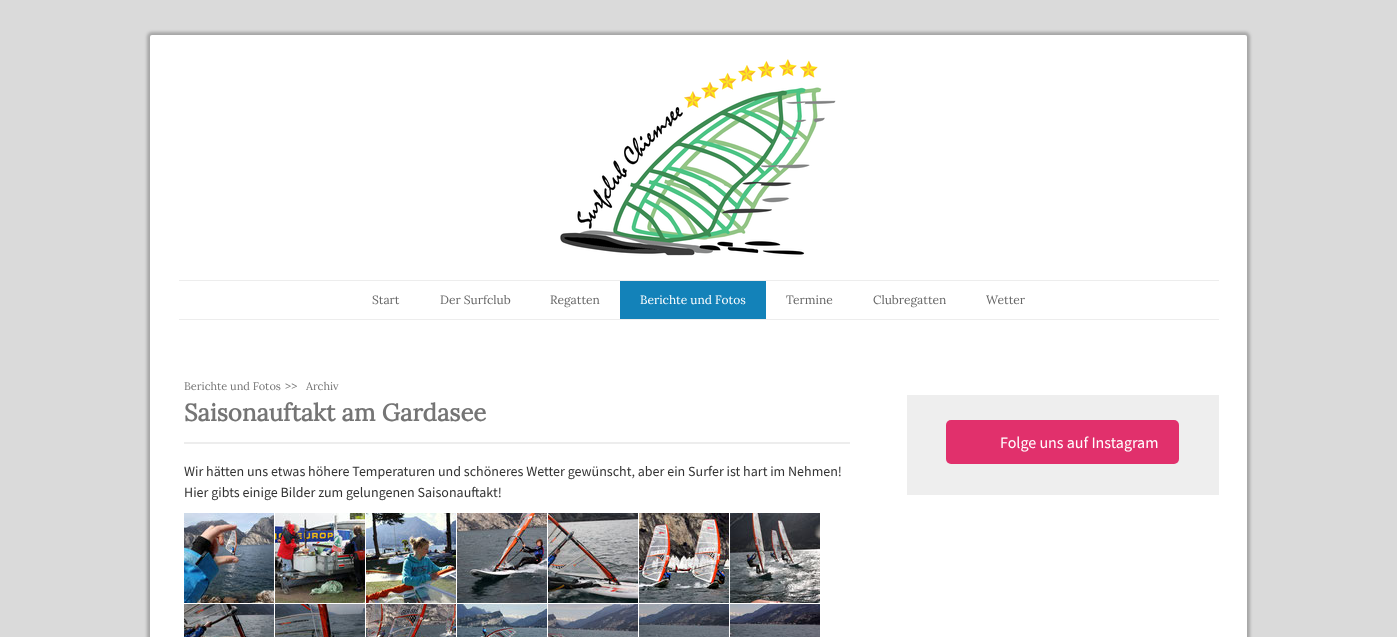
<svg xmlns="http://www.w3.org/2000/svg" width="1397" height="637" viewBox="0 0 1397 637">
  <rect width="100%" height="100%" fill="rgb(218,218,218)"/>
  <rect x="147" y="32" width="1103" height="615" rx="5" fill="rgba(51,51,51,0.3)" filter="blur(1.5px)"/>
  <rect x="150" y="35" width="1097" height="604" rx="2" fill="rgb(255,255,255)"/>
  <image x="560" y="59" width="276" height="198" href="pic1.png"/>
  <rect x="179" y="280" width="1040" height="1" fill="rgb(237,237,237)"/>
  <rect x="179" y="319" width="1040" height="1" fill="rgb(237,237,237)"/>
  <g font-family="Lora" font-size="12" fill="rgb(102,102,102)">
    <text x="372" y="304">Start</text>
    <text x="440" y="304">Der Surfclub</text>
    <text x="550" y="304">Regatten</text>
  </g>
  <rect x="620" y="281" width="146" height="38" fill="rgb(19,130,185)"/>
  <text x="640" y="304" font-family="Lora" font-size="12" fill="rgb(255,255,255)">Berichte und Fotos</text>
  <g font-family="Lora" font-size="12" fill="rgb(102,102,102)">
    <text x="786" y="304">Termine</text>
    <text x="873" y="304">Clubregatten</text>
    <text x="986" y="304">Wetter</text>
  </g>
  <text x="184" y="390" font-family="Lora" font-size="11" fill="rgb(117,117,117)">Berichte und Fotos</text>
  <text x="285" y="390" font-family="Open Sans" font-size="11" fill="rgb(117,117,117)">&gt;&gt;</text>
  <text x="306" y="390" font-family="Lora" font-size="11" fill="rgb(117,117,117)">Archiv</text>
  <text x="184" y="421" font-family="Lora" font-size="24" font-weight="bold" fill="rgb(117,117,117)">Saisonauftakt am Gardasee</text>
  <rect x="184" y="442" width="666" height="2" fill="rgb(237,237,237)"/>
  <g font-family="Source Sans Pro" font-size="14" fill="rgb(51,51,51)">
    <text>
      <tspan x="184" y="476">Wir hätten uns etwas höhere Temperaturen und schöneres Wetter gewünscht, aber ein Surfer ist hart im Nehmen!</tspan>
      <tspan x="184" y="497">Hier gibts einige Bilder zum gelungenen Saisonauftakt!</tspan>
    </text>
  </g>
  <image x="184" y="513" width="90" height="90" href="pic2.png"/>
  <image x="275" y="513" width="90" height="90" href="pic3.png"/>
  <image x="366" y="513" width="90" height="90" href="pic4.png"/>
  <image x="457" y="513" width="90" height="90" href="pic5.png"/>
  <image x="548" y="513" width="90" height="90" href="pic6.png"/>
  <image x="639" y="513" width="90" height="90" href="pic7.png"/>
  <image x="730" y="513" width="90" height="90" href="pic8.png"/>
  <image x="184" y="604" width="90" height="33" href="pic9.png"/>
  <image x="275" y="604" width="90" height="33" href="pic10.png"/>
  <image x="366" y="604" width="90" height="33" href="pic11.png"/>
  <image x="457" y="604" width="90" height="33" href="pic12.png"/>
  <image x="548" y="604" width="90" height="33" href="pic13.png"/>
  <image x="639" y="604" width="90" height="33" href="pic14.png"/>
  <image x="730" y="604" width="90" height="33" href="pic15.png"/>
  <rect x="907" y="395" width="312" height="100" fill="rgb(238,238,238)"/>
  <rect x="946" y="420" width="233" height="44" rx="5" fill="rgb(225,48,108)"/>
  <text x="1000" y="448" font-family="Source Sans Pro" font-size="16" fill="rgb(255,255,255)">Folge uns auf Instagram</text>
</svg>
